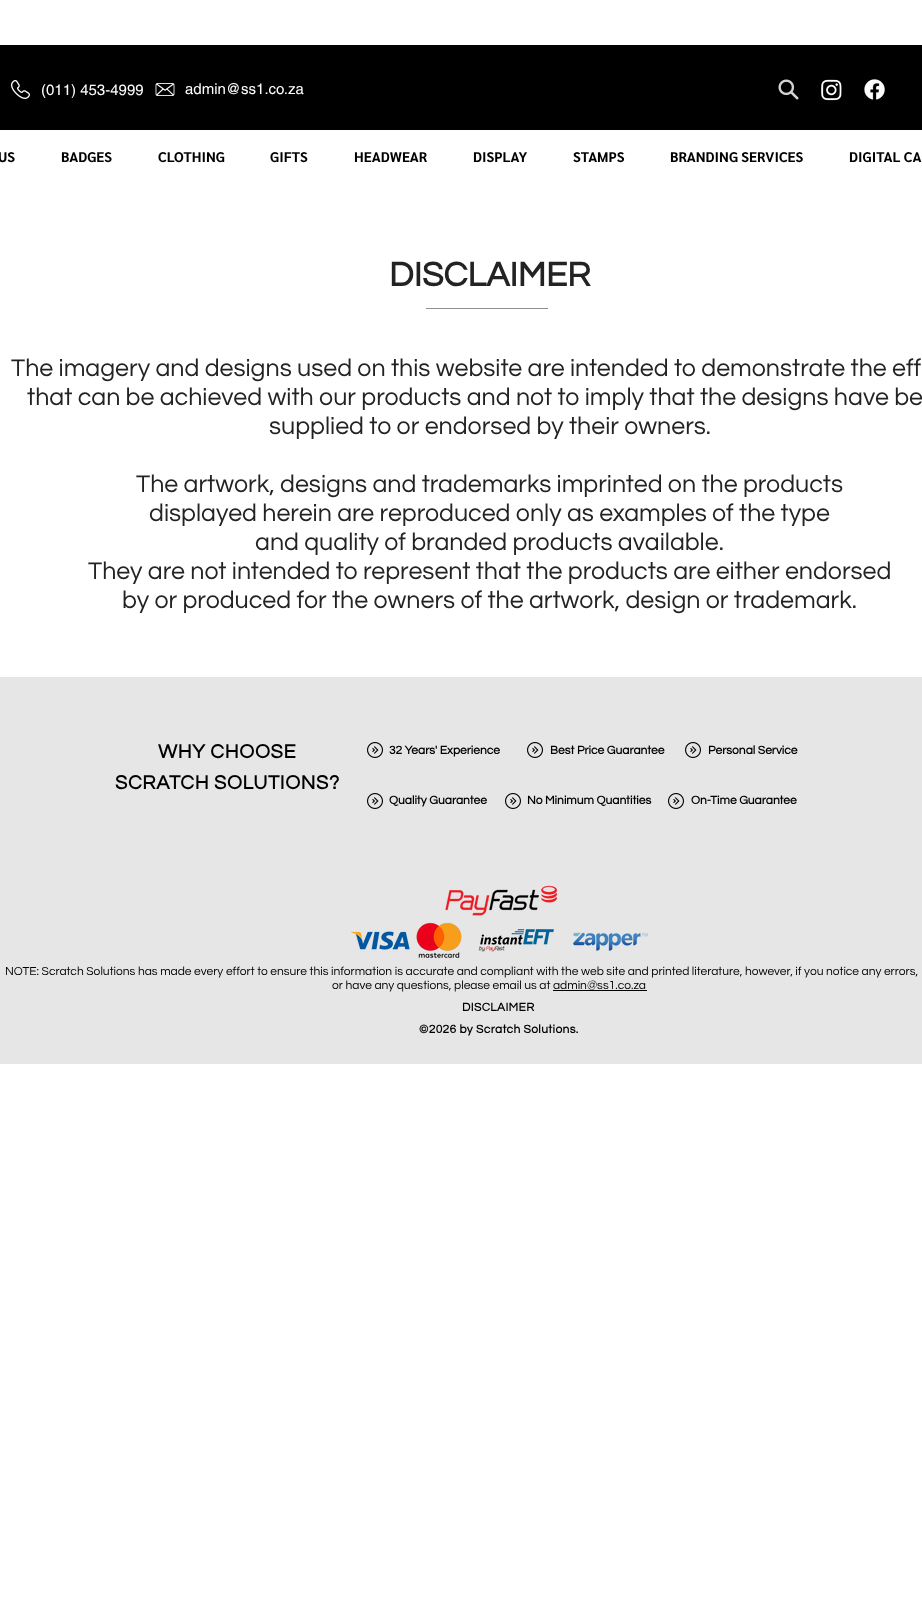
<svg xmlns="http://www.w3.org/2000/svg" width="922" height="1616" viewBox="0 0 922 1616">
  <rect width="100%" height="100%" fill="rgb(255,255,255)"/>
  <rect x="0" y="45" width="922" height="85" fill="rgb(0,0,0)"/>
  <image x="11" y="80" width="19" height="19" href="pic1.png"/>
  <text x="41" y="95" font-family="helvetica" font-size="15" fill="rgb(255,255,255)">(011) 453-4999</text>
  <image x="155" y="83" width="20" height="13" href="pic2.png"/>
  <text x="185" y="94" font-family="helvetica" font-size="15" fill="rgb(255,255,255)">admin@ss1.co.za</text>
  <image x="778" y="79" width="21" height="21" href="pic3.png"/>
  <image x="821" y="79" width="21" height="22" href="pic4.png"/>
  <image x="864" y="79" width="21" height="21" href="pic5.png"/>
  <g font-family="Sarabun" font-size="14" font-weight="bold" fill="rgb(0,0,0)">
    <text x="-2" y="162">US</text>
    <text x="61" y="162">BADGES</text>
    <text x="158" y="162">CLOTHING</text>
    <text x="270" y="162">GIFTS</text>
    <text x="354" y="162">HEADWEAR</text>
    <text x="473" y="162">DISPLAY</text>
    <text x="573" y="162">STAMPS</text>
    <text x="670" y="162">BRANDING SERVICES</text>
    <text x="849" y="162">DIGITAL CA</text>
  </g>
  <text x="389" y="286" font-family="Questrial" font-size="35" font-weight="bold" fill="rgb(36,35,35)">DISCLAIMER</text>
  <rect x="426" y="308" width="122" height="1" fill="rgb(144,144,144)"/>
  <g font-family="Questrial" font-size="25" fill="rgb(36,35,35)">
    <text x="11" y="376">The imagery and designs used on this website are intended to demonstrate the eff</text>
    <text x="27" y="405">that can be achieved with our products and not to imply that the designs have be</text>
    <text x="269" y="434">supplied to or endorsed by their owners.</text>
    <text x="136" y="492">The artwork, designs and trademarks imprinted on the products</text>
    <text x="149" y="521">displayed herein are reproduced only as examples of the type</text>
    <text x="255" y="550">and quality of branded products available.</text>
    <text x="88" y="579">They are not intended to represent that the products are either endorsed</text>
    <text x="122" y="608">by or produced for the owners of the artwork, design or trademark.</text>
  </g>
  <rect x="0" y="677" width="922" height="387" fill="rgb(230,230,230)"/>
  <g font-family="Questrial" font-size="20" font-weight="bold" letter-spacing="0.6" fill="rgb(0,0,0)">
    <text x="158" y="758">WHY CHOOSE</text>
    <text x="115" y="789">SCRATCH SOLUTIONS?</text>
  </g>
  <image x="367" y="742" width="16" height="16" href="pic6.png"/>
  <text x="389" y="754" font-family="Questrial" font-size="12" font-weight="bold" fill="rgb(0,0,0)">32 Years' Experience</text>
  <image x="527" y="742" width="16" height="16" href="pic6.png"/>
  <text x="550" y="754" font-family="Questrial" font-size="12" font-weight="bold" fill="rgb(0,0,0)">Best Price Guarantee</text>
  <image x="685" y="742" width="16" height="16" href="pic6.png"/>
  <text x="708" y="754" font-family="Questrial" font-size="12" font-weight="bold" fill="rgb(0,0,0)">Personal Service</text>
  <image x="367" y="793" width="16" height="16" href="pic6.png"/>
  <text x="389" y="804" font-family="Questrial" font-size="12" font-weight="bold" fill="rgb(0,0,0)">Quality Guarantee</text>
  <image x="505" y="793" width="16" height="16" href="pic6.png"/>
  <text x="527" y="804" font-family="Questrial" font-size="12" font-weight="bold" fill="rgb(0,0,0)">No Minimum Quantities</text>
  <image x="668" y="793" width="16" height="16" href="pic6.png"/>
  <text x="691" y="804" font-family="Questrial" font-size="12" font-weight="bold" fill="rgb(0,0,0)">On-Time Guarantee</text>
  <image x="351" y="885" width="297" height="73" href="pic7.png"/>
  <g font-family="Questrial" font-size="12" fill="rgb(0,0,0)">
    <text x="5" y="975">NOTE: Scratch Solutions has made every effort to ensure this information is accurate and compliant with the web site and printed literature, however, if you notice any errors,</text>
    <text x="332" y="989">or have any questions, please email us at admin@ss1.co.za</text>
  </g>
  <rect x="553" y="990" width="94" height="1" fill="rgb(0,0,0)"/>
  <g font-family="Questrial" font-size="12" font-weight="bold" letter-spacing="0.35" fill="rgb(0,0,0)">
    <text x="462" y="1011">DISCLAIMER</text>
    <text x="419" y="1033">©2026 by Scratch Solutions.</text>
  </g>
</svg>
